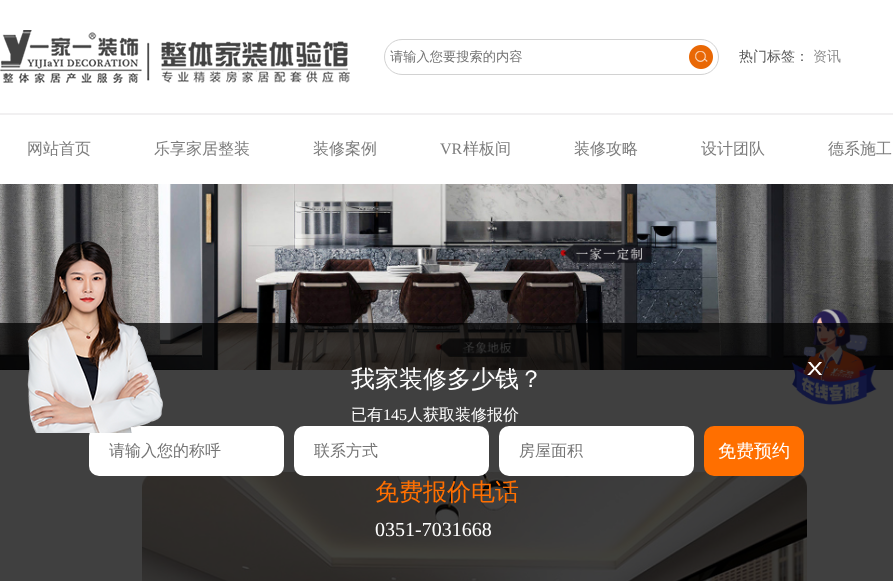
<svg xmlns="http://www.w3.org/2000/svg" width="893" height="581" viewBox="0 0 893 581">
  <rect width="100%" height="100%" fill="rgb(255,255,255)"/>
  <rect x="0" y="113" width="893" height="2" fill="rgb(241,240,241)"/>
  <image x="0" y="30" width="350" height="53" href="pic1.png"/>
  <rect x="384.5" y="39.5" width="334" height="35" rx="17.5" fill="none" stroke="rgb(210,210,210)"/>
  <text x="390" y="61" font-family="WenQuanYi Zen Hei" font-size="13.25" font-weight="500" fill="rgb(117,117,117)">请输入您要搜索的内容</text>
  <image x="689" y="45" width="24" height="24" href="pic2.png"/>
  <text x="739" y="61" font-family="WenQuanYi Zen Hei" font-size="14" font-weight="500" fill="rgb(88,88,88)">热门标签：</text>
  <text x="813" y="61" font-family="WenQuanYi Zen Hei" font-size="14" font-weight="500" fill="rgb(141,141,141)">资讯</text>
  <g font-family="WenQuanYi Zen Hei" font-size="16" font-weight="500" fill="rgb(125,125,125)">
    <text x="27" y="154">网站首页</text>
    <text x="154" y="154">乐享家居整装</text>
    <text x="313" y="154">装修案例</text>
  </g>
  <text x="440" y="154" font-family="Liberation Serif" font-size="16" fill="rgb(125,125,125)">VR</text>
  <g font-family="WenQuanYi Zen Hei" font-size="16" font-weight="500" fill="rgb(125,125,125)">
    <text x="463" y="154">样板间</text>
    <text x="574" y="154">装修攻略</text>
    <text x="701" y="154">设计团队</text>
    <text x="828" y="154">德系施工</text>
  </g>
  <image x="0" y="184" width="893" height="186" href="pic3.png"/>
  <image x="792" y="309" width="85" height="96" href="pic6.png"/>
  <image x="142" y="472" width="665" height="109" href="pic7.png"/>
  <rect x="0" y="323" width="893" height="258" fill="rgba(0,0,0,0.75)"/>
  <rect x="89" y="426" width="195" height="50" rx="10" fill="rgb(255,255,255)"/>
  <image x="27" y="240" width="136" height="193" href="pic4.png"/>
  <text x="351" y="387" font-family="WenQuanYi Zen Hei" font-size="24" font-weight="500" fill="rgb(255,255,255)">我家装修多少钱？</text>
  <text x="351" y="420" font-family="WenQuanYi Zen Hei" font-size="16" font-weight="500" fill="rgb(255,255,255)">已有</text>
  <text x="383" y="420" font-family="Liberation Serif" font-size="16" fill="rgb(255,255,255)">145</text>
  <text x="407" y="420" font-family="WenQuanYi Zen Hei" font-size="16" font-weight="500" fill="rgb(255,255,255)">人获取装修报价</text>
  <image x="807" y="362" width="15" height="13" href="pic5.png"/>
  <text x="109" y="456" font-family="WenQuanYi Zen Hei" font-size="16" font-weight="500" fill="rgb(117,117,117)">请输入您的称呼</text>
  <rect x="294" y="426" width="195" height="50" rx="10" fill="rgb(255,255,255)"/>
  <text x="314" y="456" font-family="WenQuanYi Zen Hei" font-size="16" font-weight="500" fill="rgb(117,117,117)">联系方式</text>
  <rect x="499" y="426" width="195" height="50" rx="10" fill="rgb(255,255,255)"/>
  <text x="519" y="456" font-family="WenQuanYi Zen Hei" font-size="16" font-weight="500" fill="rgb(117,117,117)">房屋面积</text>
  <rect x="704" y="426" width="100" height="50" rx="10" fill="rgb(255,111,0)"/>
  <text x="718" y="457" font-family="WenQuanYi Zen Hei" font-size="18" font-weight="500" fill="rgb(255,255,255)">免费预约</text>
  <text x="375" y="500" font-family="WenQuanYi Zen Hei" font-size="24" font-weight="500" fill="rgb(255,111,0)">免费报价电话</text>
  <text x="375" y="536" font-family="Liberation Serif" font-size="20" fill="rgb(255,255,255)">0351-7031668</text>
</svg>
